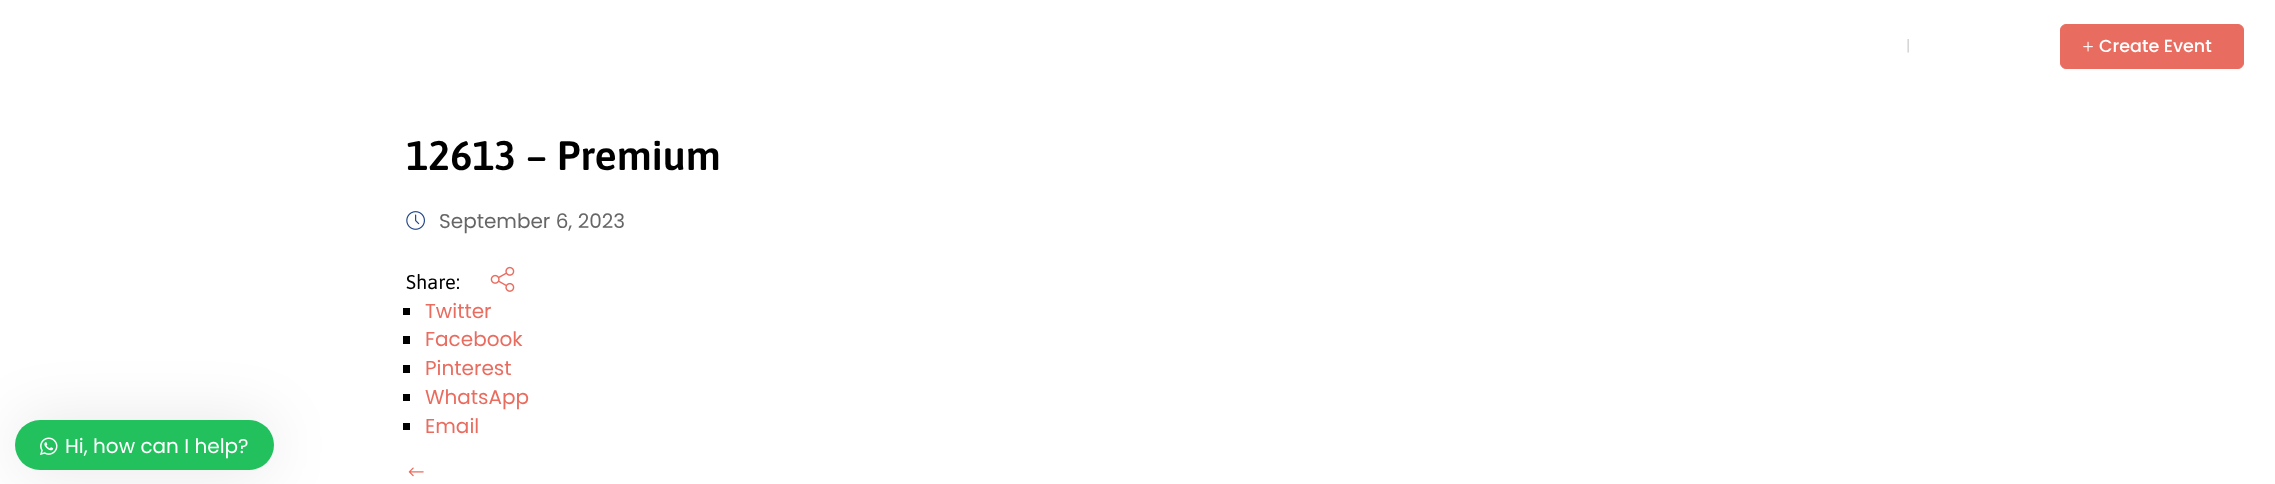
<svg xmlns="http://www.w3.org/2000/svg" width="2275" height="484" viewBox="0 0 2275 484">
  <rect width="100%" height="100%" fill="rgb(255,255,255)"/>
  <text x="1906" y="51" font-family="Poppins" font-size="15" fill="rgb(209,209,209)">|</text>
  <rect x="2060.5" y="24.5" width="183" height="44" rx="5.5" fill="rgb(232,108,96)" stroke="rgb(232,108,96)"/>
  <image x="2083" y="41" width="10" height="11" href="pic1.png"/>
  <text x="2099" y="52" font-family="Poppins" font-size="17.5" font-weight="500" fill="rgb(255,255,255)">Create Event</text>
  <text x="406" y="170" font-family="Asap" font-size="41.25" font-weight="600" fill="rgb(0,0,0)">12613 – Premium</text>
  <image x="406" y="211" width="19" height="19" href="pic2.png"/>
  <text x="439" y="228" font-family="Poppins" font-size="20" fill="rgb(102,102,102)">September 6, 2023</text>
  <text x="406" y="289" font-family="Asap" font-size="20" fill="rgb(0,0,0)">Share:</text>
  <image x="490" y="266" width="25" height="26" href="pic3.png"/>
  <rect x="403" y="308" width="7" height="7" fill="rgb(0,0,0)"/>
  <text x="425" y="318" font-family="Poppins" font-size="20" fill="rgb(233,108,95)">Twitter</text>
  <rect x="403" y="336" width="7" height="8" fill="rgb(0,0,0)"/>
  <text x="425" y="346" font-family="Poppins" font-size="20" fill="rgb(233,108,95)">Facebook</text>
  <rect x="403" y="365" width="7" height="8" fill="rgb(0,0,0)"/>
  <text x="425" y="375" font-family="Poppins" font-size="20" fill="rgb(233,108,95)">Pinterest</text>
  <rect x="403" y="394" width="7" height="7" fill="rgb(0,0,0)"/>
  <text x="425" y="404" font-family="Poppins" font-size="20" fill="rgb(233,108,95)">WhatsApp</text>
  <rect x="403" y="423" width="7" height="7" fill="rgb(0,0,0)"/>
  <text x="425" y="433" font-family="Poppins" font-size="20" fill="rgb(233,108,95)">Email</text>
  <image x="408" y="467" width="16" height="10" href="pic4.png"/>
  <rect x="15" y="420" width="259" height="50" rx="25" fill="rgba(0,0,0,0.1)" filter="blur(31px)"/>
  <rect x="15" y="420" width="259" height="50" rx="25" fill="rgb(34,193,94)"/>
  <image x="40" y="437" width="18" height="18" href="pic5.png"/>
  <text x="65" y="453" font-family="Poppins" font-size="20" fill="rgb(255,255,255)">Hi, how can I help?</text>
</svg>
